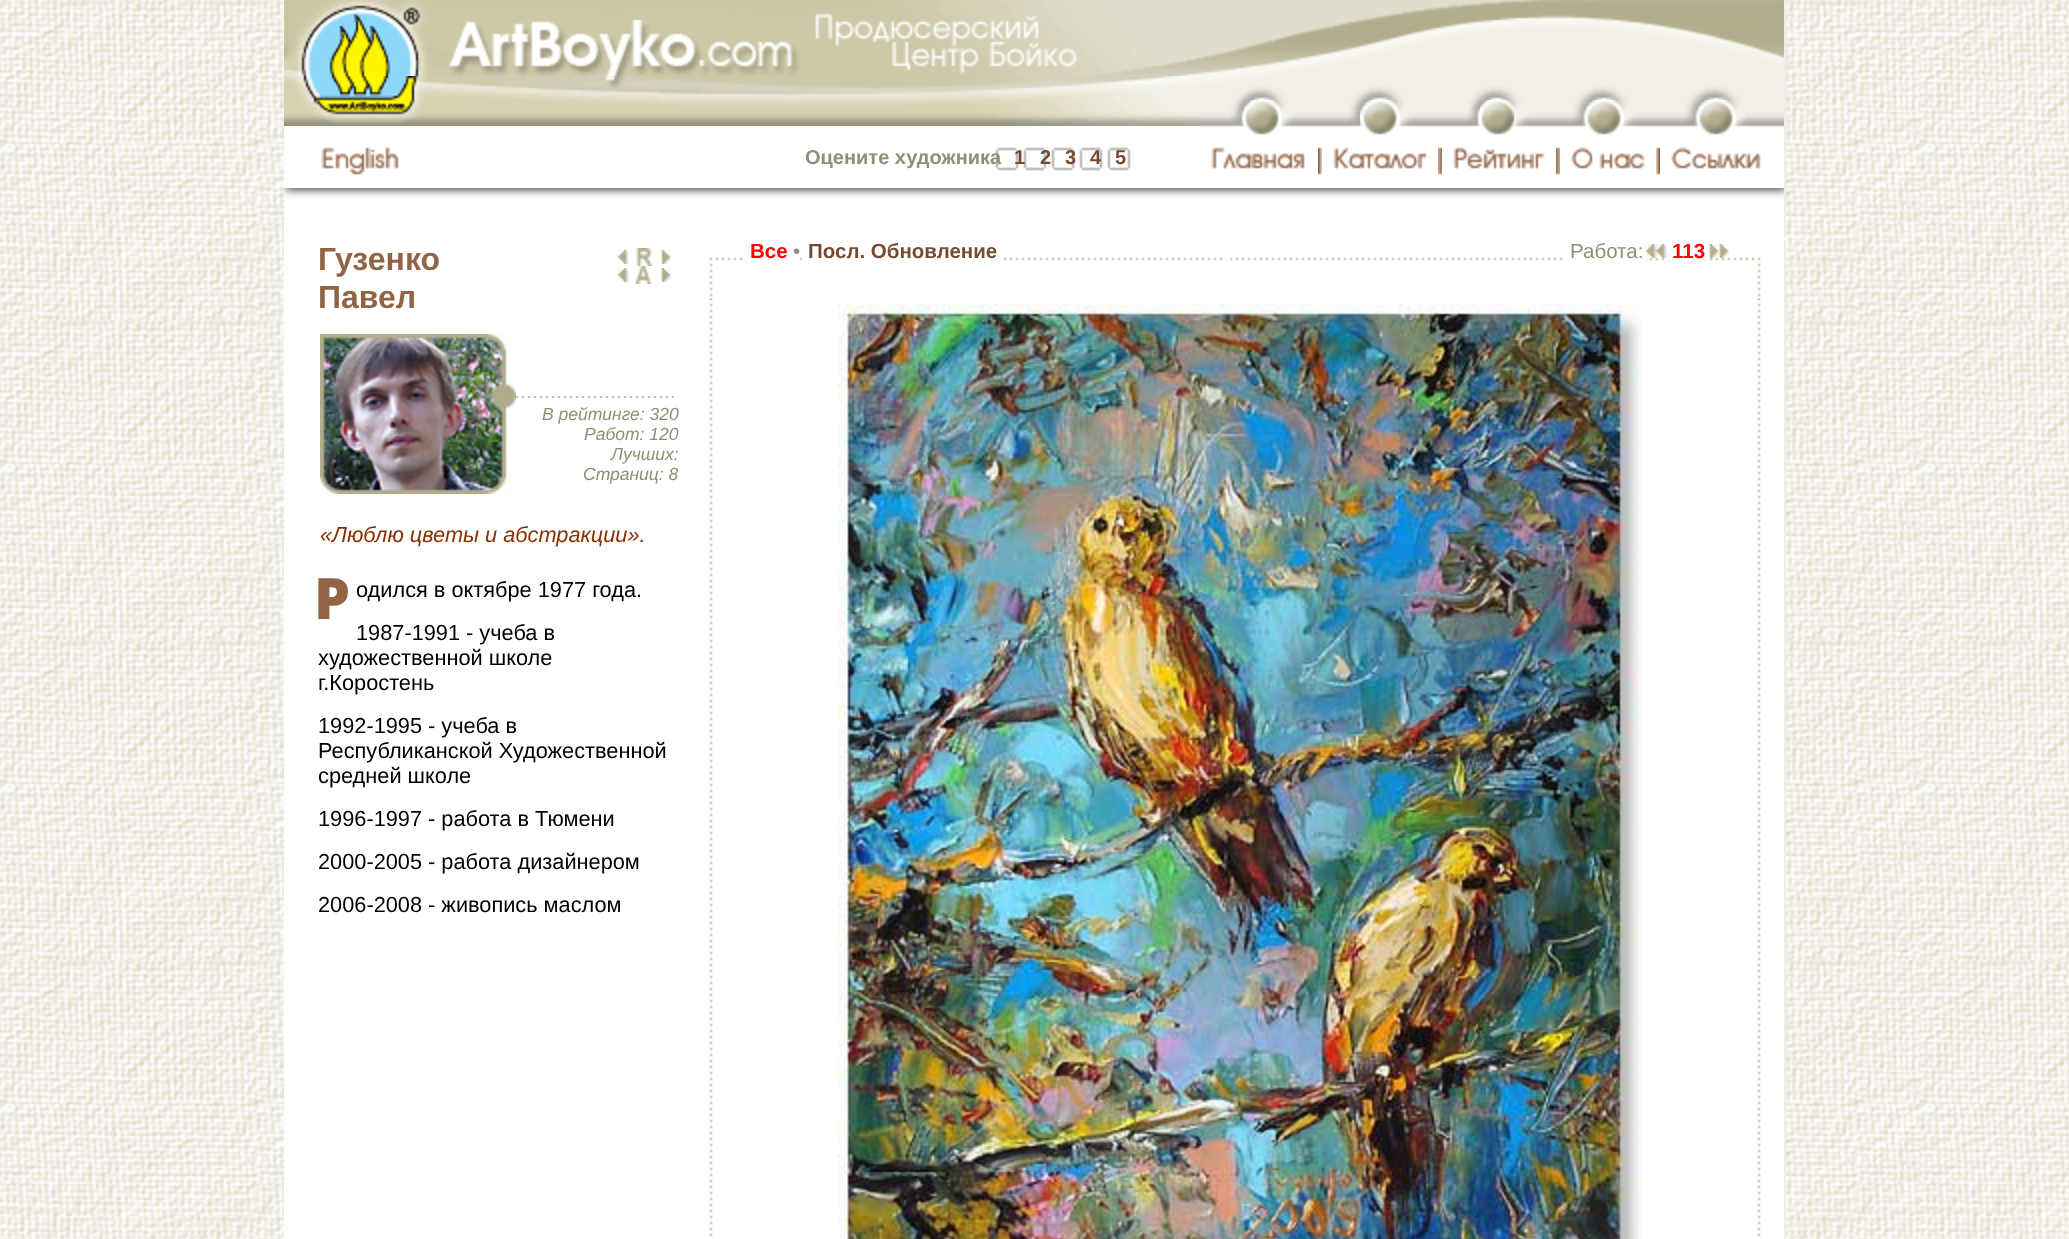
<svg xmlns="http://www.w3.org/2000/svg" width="2069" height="1239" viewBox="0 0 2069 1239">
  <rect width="100%" height="100%" fill="rgb(255,255,255)"/>
  <image x="0" y="0" width="2069" height="1239" href="pic1.png"/>
  <rect x="284" y="126" width="1502" height="1113" fill="rgb(255,255,255)"/>
  <image x="284" y="0" width="1500" height="76" href="pic2.png"/>
  <rect x="1784" y="0" width="2" height="238" fill="rgb(240,238,229)"/>
  <image x="284" y="76" width="916" height="50" href="pic3.png"/>
  <image x="1200" y="76" width="584" height="24" href="pic4.png"/>
  <image x="1200" y="100" width="44" height="27" href="pic5.png"/>
  <image x="1244" y="100" width="36" height="35" href="pic6.png"/>
  <image x="1280" y="100" width="80" height="27" href="pic7.png"/>
  <image x="1360" y="100" width="38" height="35" href="pic8.png"/>
  <image x="1398" y="100" width="82" height="27" href="pic9.png"/>
  <image x="1480" y="100" width="36" height="35" href="pic10.png"/>
  <image x="1516" y="100" width="70" height="27" href="pic11.png"/>
  <image x="1586" y="100" width="36" height="35" href="pic12.png"/>
  <image x="1622" y="100" width="76" height="27" href="pic13.png"/>
  <image x="1698" y="100" width="36" height="35" href="pic14.png"/>
  <image x="1734" y="100" width="50" height="27" href="pic15.png"/>
  <image x="321" y="147" width="78" height="28" href="pic16.png"/>
  <image x="1211" y="147" width="94" height="22" href="pic17.png"/>
  <image x="1318" y="147" width="4" height="28" href="pic18.png"/>
  <image x="1333" y="147" width="94" height="22" href="pic19.png"/>
  <image x="1438" y="147" width="4" height="28" href="pic20.png"/>
  <image x="1453" y="147" width="92" height="22" href="pic21.png"/>
  <image x="1556" y="147" width="4" height="28" href="pic22.png"/>
  <image x="1571" y="147" width="74" height="22" href="pic23.png"/>
  <image x="1656" y="147" width="4" height="28" href="pic24.png"/>
  <image x="1671" y="147" width="90" height="22" href="pic25.png"/>
  <image x="995" y="147" width="136" height="24" href="pic26.png"/>
  <text x="805" y="164" font-family="Liberation Sans" font-size="20" font-weight="bold" fill="rgb(146,142,117)">Оцените художника</text>
  <g font-family="Liberation Sans" font-size="20" font-weight="bold" fill="rgb(114,77,52)">
    <text x="1014" y="164">1</text>
    <text x="1040" y="164">2</text>
    <text x="1065" y="164">3</text>
    <text x="1090" y="164">4</text>
    <text x="1115" y="164">5</text>
  </g>
  <image x="284" y="188" width="1500" height="10" href="pic27.png"/>
  <g font-family="Liberation Sans" font-size="32" font-weight="bold" fill="rgb(145,100,69)">
    <text>
      <tspan x="318" y="270">Гузенко</tspan>
      <tspan x="318" y="308">Павел</tspan>
    </text>
  </g>
  <image x="617" y="250" width="12" height="14" href="pic28.png"/>
  <image x="635" y="248" width="18" height="18" href="pic29.png"/>
  <image x="661" y="250" width="10" height="14" href="pic30.png"/>
  <image x="617" y="268" width="12" height="14" href="pic28.png"/>
  <image x="634" y="266" width="19" height="18" href="pic31.png"/>
  <image x="661" y="268" width="10" height="14" href="pic30.png"/>
  <image x="320" y="334" width="196" height="160" href="pic32.png"/>
  <image x="516" y="396" width="158" height="2" href="pic33.png"/>
  <g font-family="Liberation Sans" font-size="17.5" font-style="italic" fill="rgb(146,142,117)">
    <text x="542" y="420">В рейтинге: 320</text>
    <text x="584" y="440">Работ: 120</text>
    <text x="611" y="460">Лучших:</text>
    <text x="583" y="480">Страниц: 8</text>
  </g>
  <text x="320" y="542" font-family="Liberation Sans" font-size="21.75" font-style="italic" fill="rgb(136,49,0)">«Люблю цветы и абстракции».</text>
  <text x="314" y="619" font-family="Noto Sans" font-size="57" font-weight="900" fill="rgb(145,100,69)">Р</text>
  <g font-family="Liberation Sans" font-size="21.75" fill="rgb(0,0,0)">
    <text>
      <tspan x="356" y="597">одился в октябре 1977 года.</tspan>
      <tspan x="356" y="640">1987-1991 - учеба в</tspan>
    </text>
    <text>
      <tspan x="318" y="665">художественной школе</tspan>
      <tspan x="318" y="690">г.Коростень</tspan>
      <tspan x="318" y="733">1992-1995 - учеба в</tspan>
      <tspan x="318" y="758">Республиканской Художественной</tspan>
      <tspan x="318" y="783">средней школе</tspan>
      <tspan x="318" y="826">1996-1997 - работа в Тюмени</tspan>
      <tspan x="318" y="869">2000-2005 - работа дизайнером</tspan>
      <tspan x="318" y="912">2006-2008 - живопись маслом</tspan>
    </text>
  </g>
  <image x="742" y="257" width="484" height="4" href="pic34.png"/>
  <rect x="751" y="257" width="37" height="4" fill="rgb(255,255,255)"/>
  <text x="750" y="258" font-family="Liberation Sans" font-size="20.5" font-weight="bold" fill="rgb(255,0,0)">Все</text>
  <rect x="742" y="257" width="2" height="1" fill="rgb(255,255,255)"/>
  <rect x="745" y="257" width="4" height="5" fill="rgb(255,255,255)"/>
  <rect x="788" y="257" width="3" height="5" fill="rgb(255,255,255)"/>
  <text x="793" y="258" font-family="Liberation Sans" font-size="20.5" fill="rgb(146,142,117)">•</text>
  <rect x="793" y="257" width="7" height="5" fill="rgb(255,255,255)"/>
  <rect x="808" y="257" width="187" height="4" fill="rgb(255,255,255)"/>
  <text x="808" y="258" font-family="Liberation Sans" font-size="20.5" font-weight="bold" fill="rgb(114,77,52)">Посл. Обновление</text>
  <rect x="802" y="257" width="6" height="5" fill="rgb(255,255,255)"/>
  <rect x="997" y="257" width="4" height="5" fill="rgb(255,255,255)"/>
  <image x="1230" y="257" width="516" height="4" href="pic35.png"/>
  <rect x="1565" y="257" width="76" height="4" fill="rgb(255,255,255)"/>
  <text x="1570" y="258" font-family="Liberation Sans" font-size="20.5" fill="rgb(146,142,117)">Работа:</text>
  <rect x="1643" y="257" width="3" height="3" fill="rgb(255,255,255)"/>
  <image x="1646" y="244" width="22" height="14" href="pic36.png"/>
  <rect x="1673" y="257" width="31" height="4" fill="rgb(255,255,255)"/>
  <text x="1672" y="258" font-family="Liberation Sans" font-size="20.5" font-weight="bold" fill="rgb(255,0,0)">113</text>
  <rect x="1668" y="257" width="3" height="3" fill="rgb(255,255,255)"/>
  <rect x="1704" y="257" width="3" height="3" fill="rgb(255,255,255)"/>
  <rect x="1729" y="257" width="1" height="1" fill="rgb(255,255,255)"/>
  <image x="1708" y="244" width="21" height="14" href="pic37.png"/>
  <image x="709" y="257" width="33" height="40" href="pic38.png"/>
  <image x="1746" y="257" width="15" height="40" href="pic39.png"/>
  <image x="709" y="298" width="4" height="939" href="pic40.png"/>
  <image x="838" y="304" width="804" height="935" href="pic41.png"/>
  <image x="1757" y="298" width="4" height="939" href="pic40.png"/>
  <rect x="1784" y="240" width="2" height="999" fill="rgb(240,238,229)"/>
</svg>
